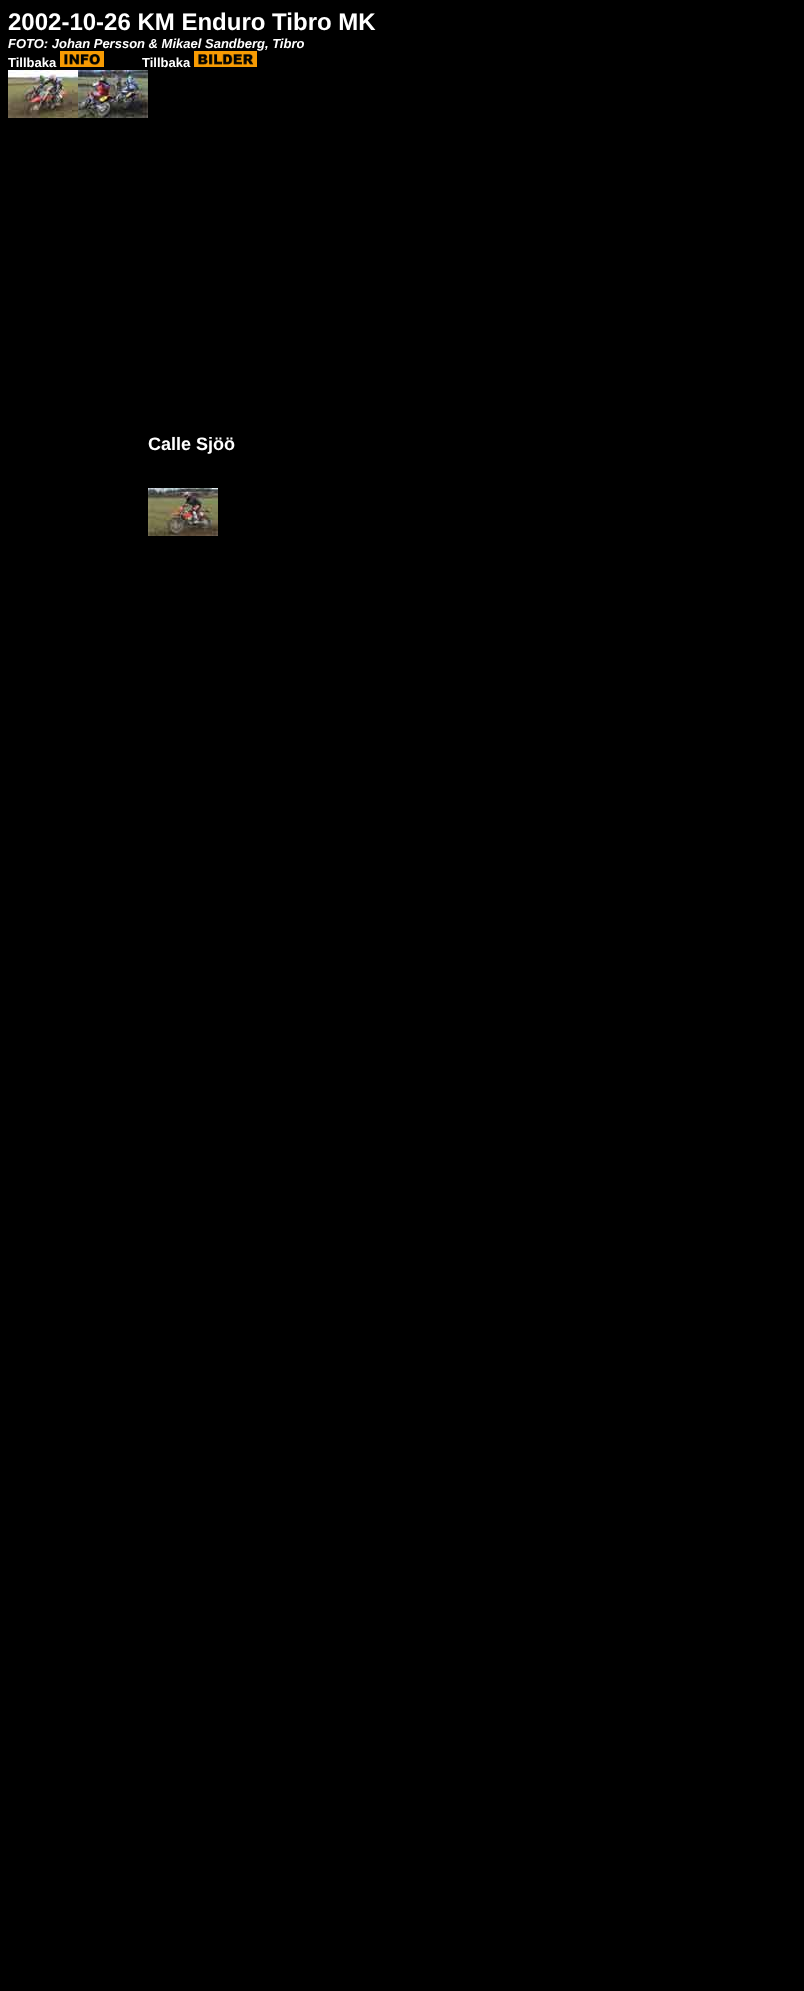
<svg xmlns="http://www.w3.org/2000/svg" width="804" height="1991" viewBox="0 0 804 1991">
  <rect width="100%" height="100%" fill="rgb(0,0,0)"/>
  <text x="8" y="30" font-family="Liberation Sans" font-size="24" font-weight="bold" fill="rgb(255,255,255)">2002-10-26 KM Enduro Tibro MK</text>
  <text x="8" y="48" font-family="Liberation Sans" font-size="13" font-weight="bold" font-style="italic" fill="rgb(255,255,255)">FOTO: Johan Persson &amp; Mikael Sandberg, Tibro</text>
  <text x="8" y="67" font-family="Liberation Sans" font-size="13" font-weight="bold" fill="rgb(255,255,255)">Tillbaka</text>
  <image x="60" y="51" width="44" height="16" href="pic1.png"/>
  <text x="142" y="67" font-family="Liberation Sans" font-size="13" font-weight="bold" fill="rgb(255,255,255)">Tillbaka</text>
  <image x="194" y="51" width="63" height="16" href="pic2.png"/>
  <image x="8" y="70" width="70" height="48" href="pic3.png"/>
  <image x="78" y="70" width="70" height="48" href="pic4.png"/>
  <text x="148" y="450" font-family="Liberation Sans" font-size="18" font-weight="bold" fill="rgb(255,255,255)">Calle Sjöö</text>
  <image x="148" y="488" width="70" height="48" href="pic5.png"/>
</svg>
